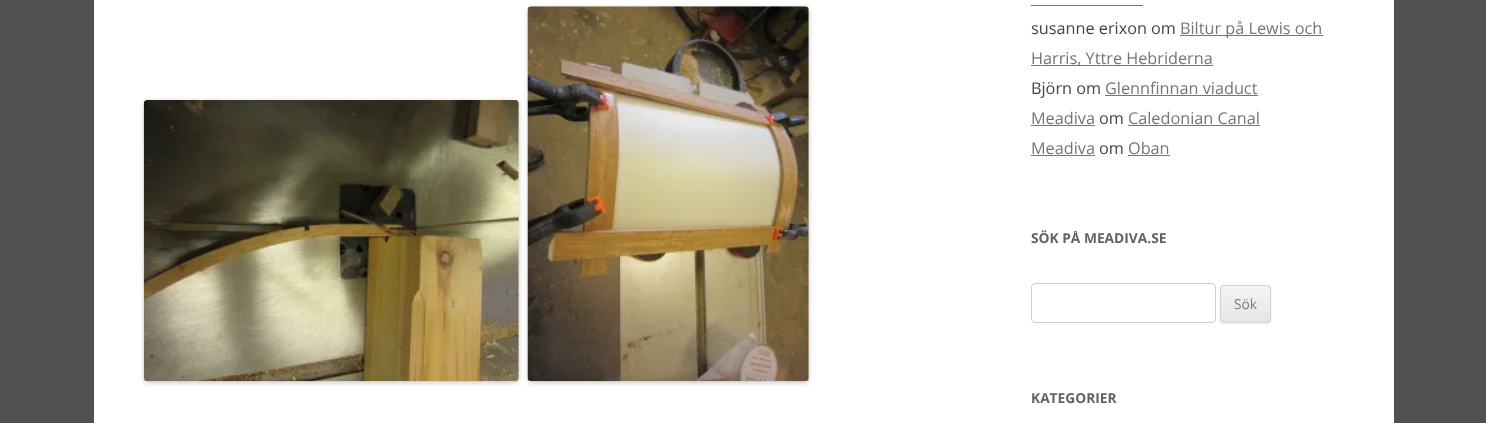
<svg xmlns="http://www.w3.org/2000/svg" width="1486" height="423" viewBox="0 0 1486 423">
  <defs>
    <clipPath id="clip1"><rect x="1220" y="285" width="51" height="38" rx="4"/></clipPath>
    <linearGradient id="g1" gradientUnits="userSpaceOnUse" x1="1246" y1="286" x2="1246" y2="321"><stop offset="0" stop-color="rgb(244,244,244)"/><stop offset="1" stop-color="rgb(230,230,230)"/></linearGradient>
  </defs>
  <rect width="100%" height="100%" fill="rgb(81,81,81)"/>
  <rect x="94" y="0" width="1300" height="423" fill="rgb(255,255,255)"/>
  <rect x="528" y="8" width="281" height="375" rx="4" fill="rgba(0,0,0,0.2)" filter="blur(2.5px)"/>
  <rect x="144" y="101" width="375" height="282" rx="4" fill="rgba(0,0,0,0.2)" filter="blur(2.5px)"/>
  <image x="527" y="6" width="282" height="376" href="pic1.png"/>
  <image x="143" y="100" width="376" height="282" href="pic2.png"/>
  <rect x="1031" y="5" width="112" height="1" fill="rgb(117,117,117)"/>
  <text x="1031" y="34" font-family="Open Sans" font-size="16.25" fill="rgb(68,68,68)">susanne erixon om</text>
  <rect x="1180" y="35" width="143" height="1" fill="rgb(117,117,117)"/>
  <text x="1180" y="34" font-family="Open Sans" font-size="16.25" fill="rgb(117,117,117)">Biltur på Lewis och</text>
  <rect x="1031" y="65" width="182" height="1" fill="rgb(117,117,117)"/>
  <text x="1031" y="64" font-family="Open Sans" font-size="16.25" fill="rgb(117,117,117)">Harris, Yttre Hebriderna</text>
  <text x="1031" y="94" font-family="Open Sans" font-size="16.25" fill="rgb(68,68,68)">Björn om</text>
  <text x="1105" y="94" font-family="Open Sans" font-size="16.25" fill="rgb(117,117,117)">Glennfinnan viaduct</text>
  <rect x="1105" y="95" width="153" height="1" fill="rgb(117,117,117)"/>
  <text x="1031" y="124" font-family="Open Sans" font-size="16.25" fill="rgb(117,117,117)">Meadiva</text>
  <rect x="1031" y="125" width="64" height="1" fill="rgb(117,117,117)"/>
  <text x="1099" y="124" font-family="Open Sans" font-size="16.25" fill="rgb(68,68,68)">om</text>
  <text x="1128" y="124" font-family="Open Sans" font-size="16.25" fill="rgb(117,117,117)">Caledonian Canal</text>
  <rect x="1128" y="125" width="132" height="1" fill="rgb(117,117,117)"/>
  <text x="1031" y="154" font-family="Open Sans" font-size="16.25" fill="rgb(117,117,117)">Meadiva</text>
  <rect x="1031" y="155" width="64" height="1" fill="rgb(117,117,117)"/>
  <text x="1099" y="154" font-family="Open Sans" font-size="16.25" fill="rgb(68,68,68)">om</text>
  <text x="1128" y="154" font-family="Open Sans" font-size="16.25" fill="rgb(117,117,117)">Oban</text>
  <rect x="1128" y="155" width="42" height="1" fill="rgb(117,117,117)"/>
  <text x="1031" y="243" font-family="Open Sans" font-size="13.75" font-weight="bold" fill="rgb(99,99,99)">SÖK PÅ MEADIVA.SE</text>
  <rect x="1031.5" y="283.5" width="184" height="39" rx="3.5" fill="none" stroke="rgb(204,204,204)"/>
  <rect x="1220" y="286" width="51" height="38" rx="4" fill="rgba(64,64,64,0.1)" filter="blur(1px)"/>
  <rect x="1220" y="285" width="51" height="38" rx="4" fill="rgb(230,230,230)"/>
  <g clip-path="url(#clip1)">
    <rect x="1220" y="286" width="51" height="35" fill="url(#g1)"/>
  </g>
  <rect x="1220.5" y="285.5" width="50" height="37" rx="3.5" fill="none" stroke="rgb(210,210,210)"/>
  <text x="1234" y="309" font-family="Open Sans" font-size="13.75" fill="rgb(124,124,124)">Sök</text>
  <text x="1031" y="403" font-family="Open Sans" font-size="13.75" font-weight="bold" fill="rgb(99,99,99)">KATEGORIER</text>
</svg>
